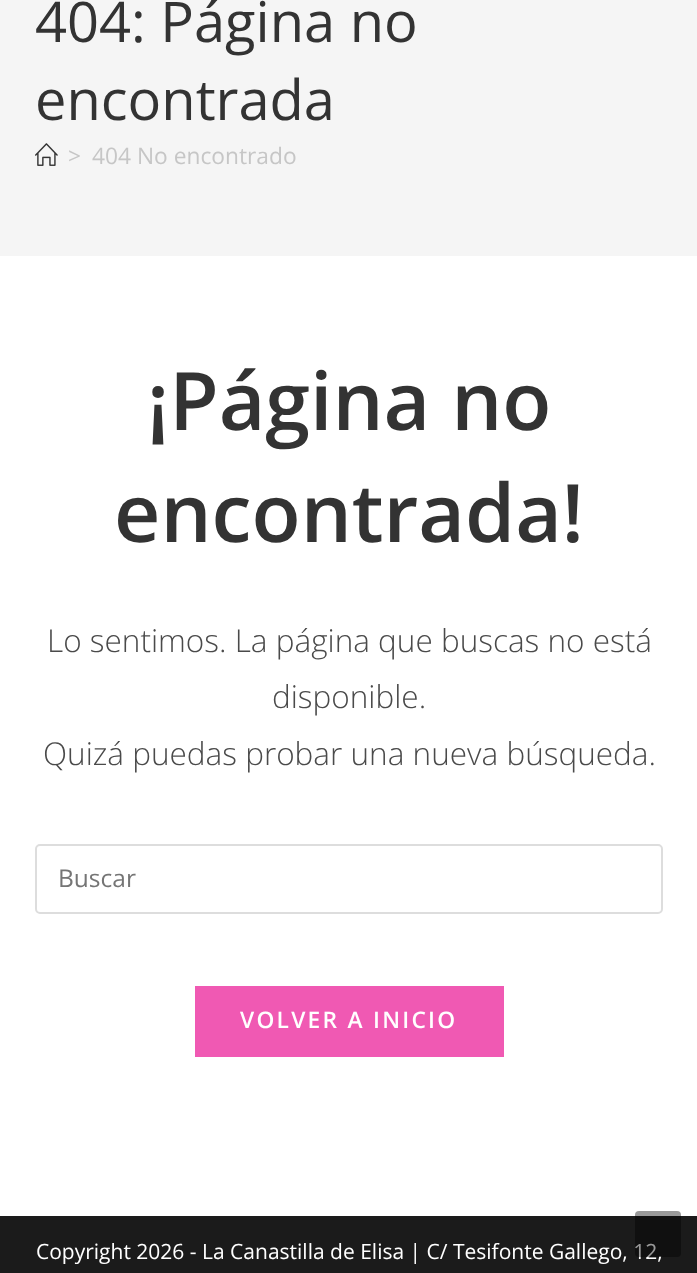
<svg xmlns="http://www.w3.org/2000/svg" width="697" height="1273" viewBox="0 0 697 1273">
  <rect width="100%" height="100%" fill="rgb(255,255,255)"/>
  <rect x="0" y="0" width="697" height="256" fill="rgb(245,245,245)"/>
  <g font-family="Open Sans" font-size="56" fill="rgb(51,51,51)">
    <text>
      <tspan x="35" y="42">404: Página no</tspan>
      <tspan x="35" y="120">encontrada</tspan>
    </text>
  </g>
  <image x="35" y="143" width="23" height="23" href="pic1.png"/>
  <g font-family="Open Sans" font-size="22.75" fill="rgb(198,198,198)">
    <text x="68" y="164">&gt;</text>
    <text x="92" y="164">404 No encontrado</text>
  </g>
  <g font-family="Open Sans" font-size="80.5" font-weight="600" fill="rgb(51,51,51)">
    <text x="147" y="430">¡Página no</text>
    <text x="114" y="542">encontrada!</text>
  </g>
  <g font-family="Open Sans" font-size="31.5" font-weight="300" fill="rgb(74,74,74)">
    <text x="47" y="652">Lo sentimos. La página que buscas no está</text>
    <text x="272" y="708">disponible.</text>
    <text x="43" y="765">Quizá puedas probar una nueva búsqueda.</text>
  </g>
  <rect x="36" y="845" width="626" height="68" rx="4" fill="none" stroke="rgb(221,221,221)" stroke-width="2"/>
  <text x="58" y="887" font-family="Open Sans" font-size="24.5" fill="rgb(117,117,117)">Buscar</text>
  <rect x="195" y="986" width="309" height="71" fill="rgb(240,89,179)"/>
  <text x="240" y="1028" font-family="Open Sans" font-size="22.75" font-weight="600" letter-spacing="2.25" fill="rgb(255,255,255)">VOLVER A INICIO</text>
  <rect x="0" y="1216" width="697" height="57" fill="rgb(27,27,27)"/>
  <text x="36" y="1259" font-family="Open Sans" font-size="21" fill="rgb(255,255,255)">Copyright 2026 - La Canastilla de Elisa | C/ Tesifonte Gallego, 12,</text>
  <rect x="635" y="1211" width="46" height="46" rx="4" fill="rgba(0,0,0,0.4)"/>
</svg>
